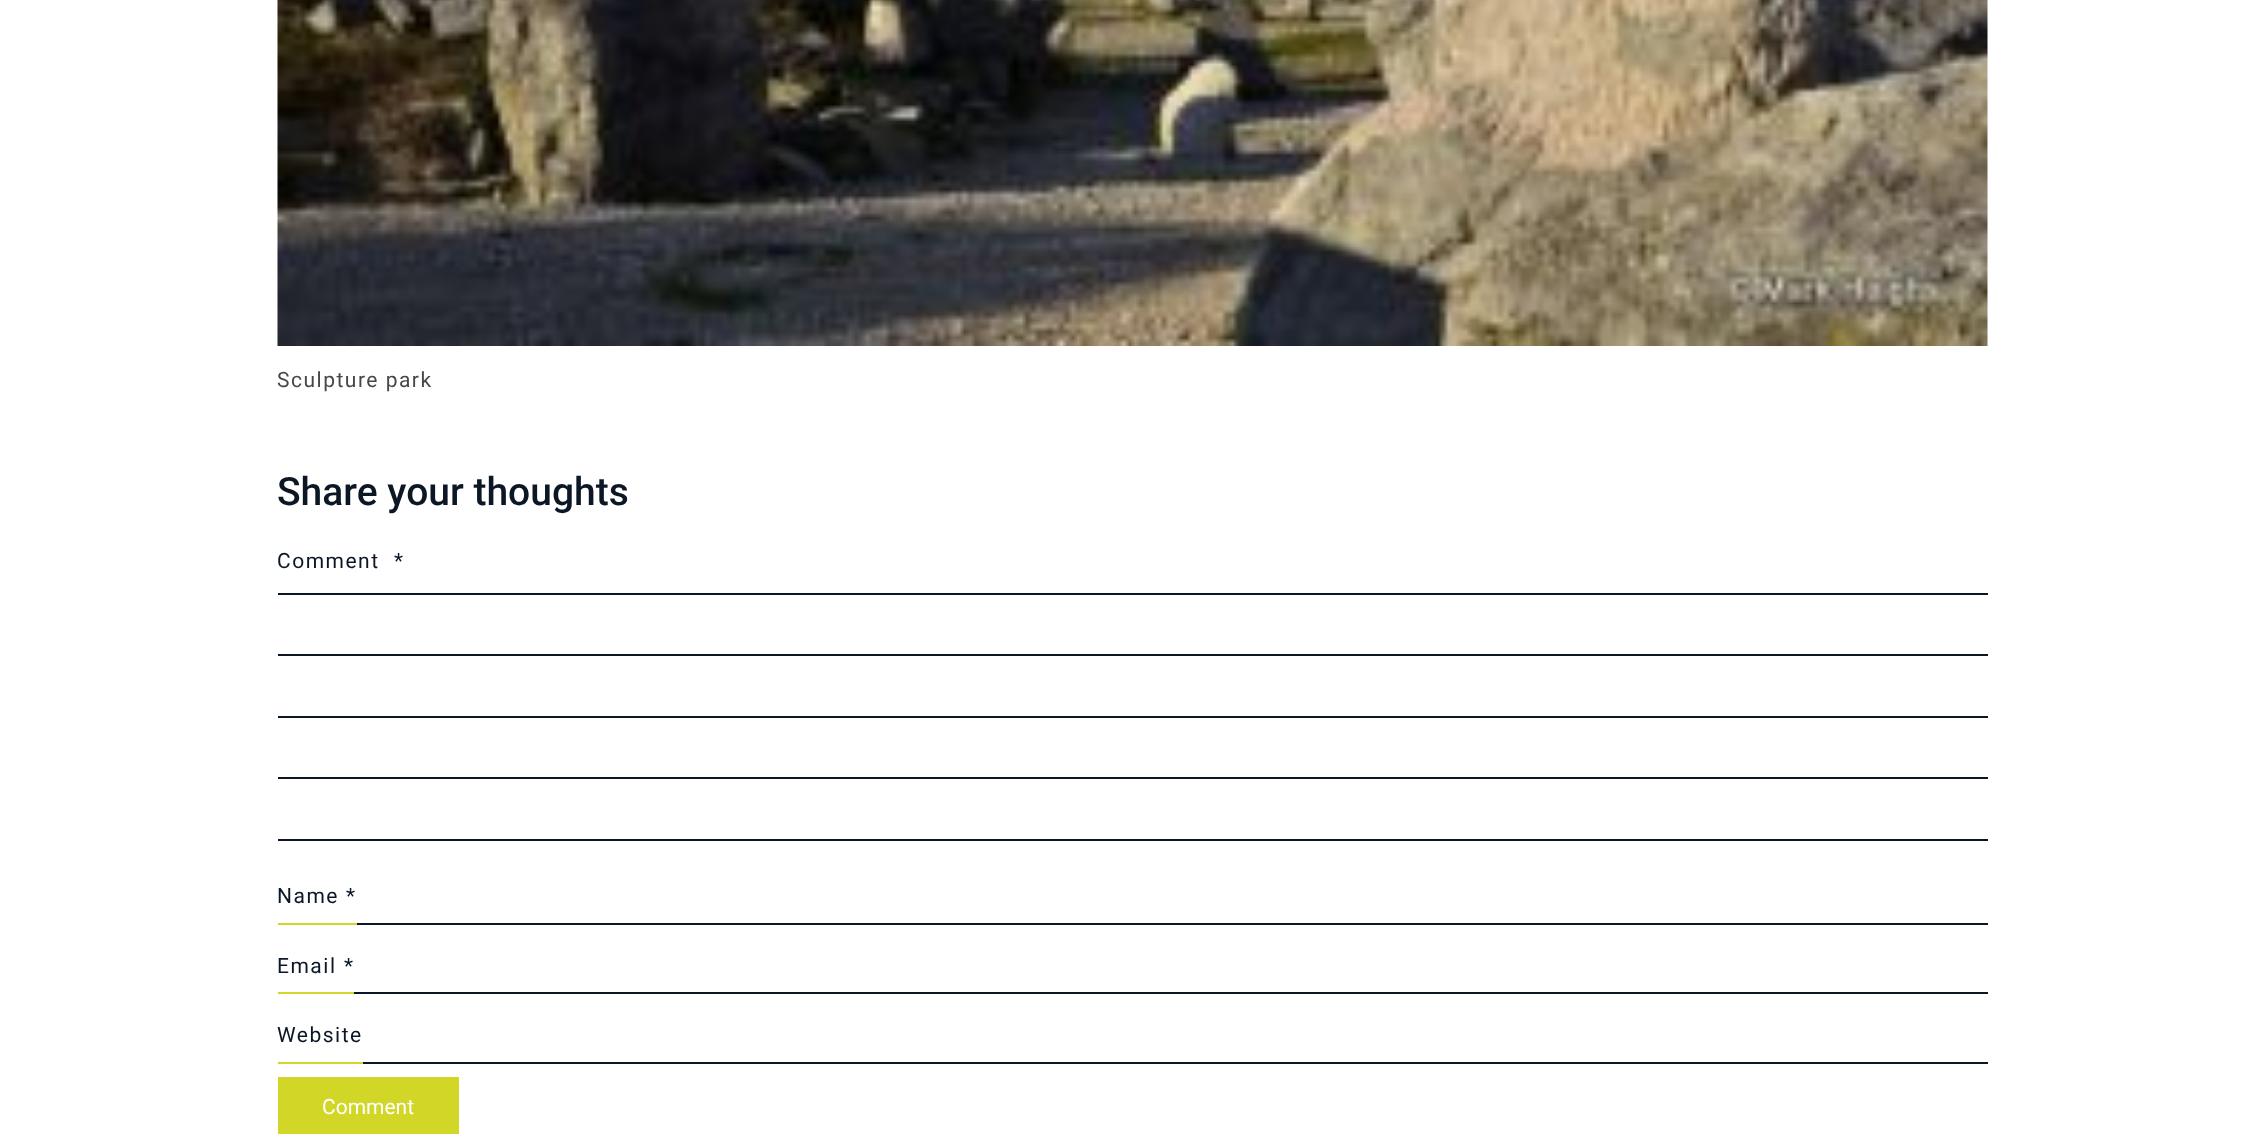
<svg xmlns="http://www.w3.org/2000/svg" width="2263" height="1142" viewBox="0 0 2263 1142">
  <rect width="100%" height="100%" fill="rgb(255,255,255)"/>
  <image x="277" y="0" width="1711" height="346" href="pic1.png"/>
  <text x="277" y="387" font-family="Roboto" font-size="21" letter-spacing="1.5" fill="rgb(71,71,71)">Sculpture park</text>
  <text x="277" y="505" font-family="Roboto" font-size="39" font-weight="500" fill="rgb(12,23,38)">Share your thoughts</text>
  <g font-family="Roboto" font-size="21" letter-spacing="1.5" fill="rgb(12,23,38)">
    <text x="277" y="568">Comment</text>
    <text x="394" y="568">*</text>
  </g>
  <rect x="278" y="593" width="1710" height="2" fill="rgb(12,23,38)"/>
  <rect x="278" y="654" width="1710" height="2" fill="rgb(12,23,38)"/>
  <rect x="278" y="716" width="1710" height="2" fill="rgb(12,23,38)"/>
  <rect x="278" y="777" width="1710" height="2" fill="rgb(12,23,38)"/>
  <rect x="278" y="839" width="1710" height="2" fill="rgb(12,23,38)"/>
  <rect x="278" y="923" width="79" height="2" fill="rgb(210,214,39)"/>
  <g font-family="Roboto" font-size="21" letter-spacing="1.5" fill="rgb(12,23,38)">
    <text x="277" y="903">Name</text>
    <text x="346" y="903">*</text>
  </g>
  <rect x="357" y="923" width="1631" height="2" fill="rgb(12,23,38)"/>
  <rect x="278" y="992" width="76" height="2" fill="rgb(210,214,39)"/>
  <g font-family="Roboto" font-size="21" letter-spacing="1.5" fill="rgb(12,23,38)">
    <text x="277" y="973">Email</text>
    <text x="344" y="973">*</text>
  </g>
  <rect x="354" y="992" width="1634" height="2" fill="rgb(12,23,38)"/>
  <rect x="278" y="1062" width="85" height="2" fill="rgb(210,214,39)"/>
  <text x="277" y="1042" font-family="Roboto" font-size="21" letter-spacing="1.5" fill="rgb(12,23,38)">Website</text>
  <rect x="363" y="1062" width="1625" height="2" fill="rgb(12,23,38)"/>
  <rect x="278" y="1077" width="181" height="57" fill="rgb(210,214,39)"/>
  <text x="322" y="1114" font-family="Roboto" font-size="21" fill="rgb(255,255,255)">Comment</text>
</svg>
